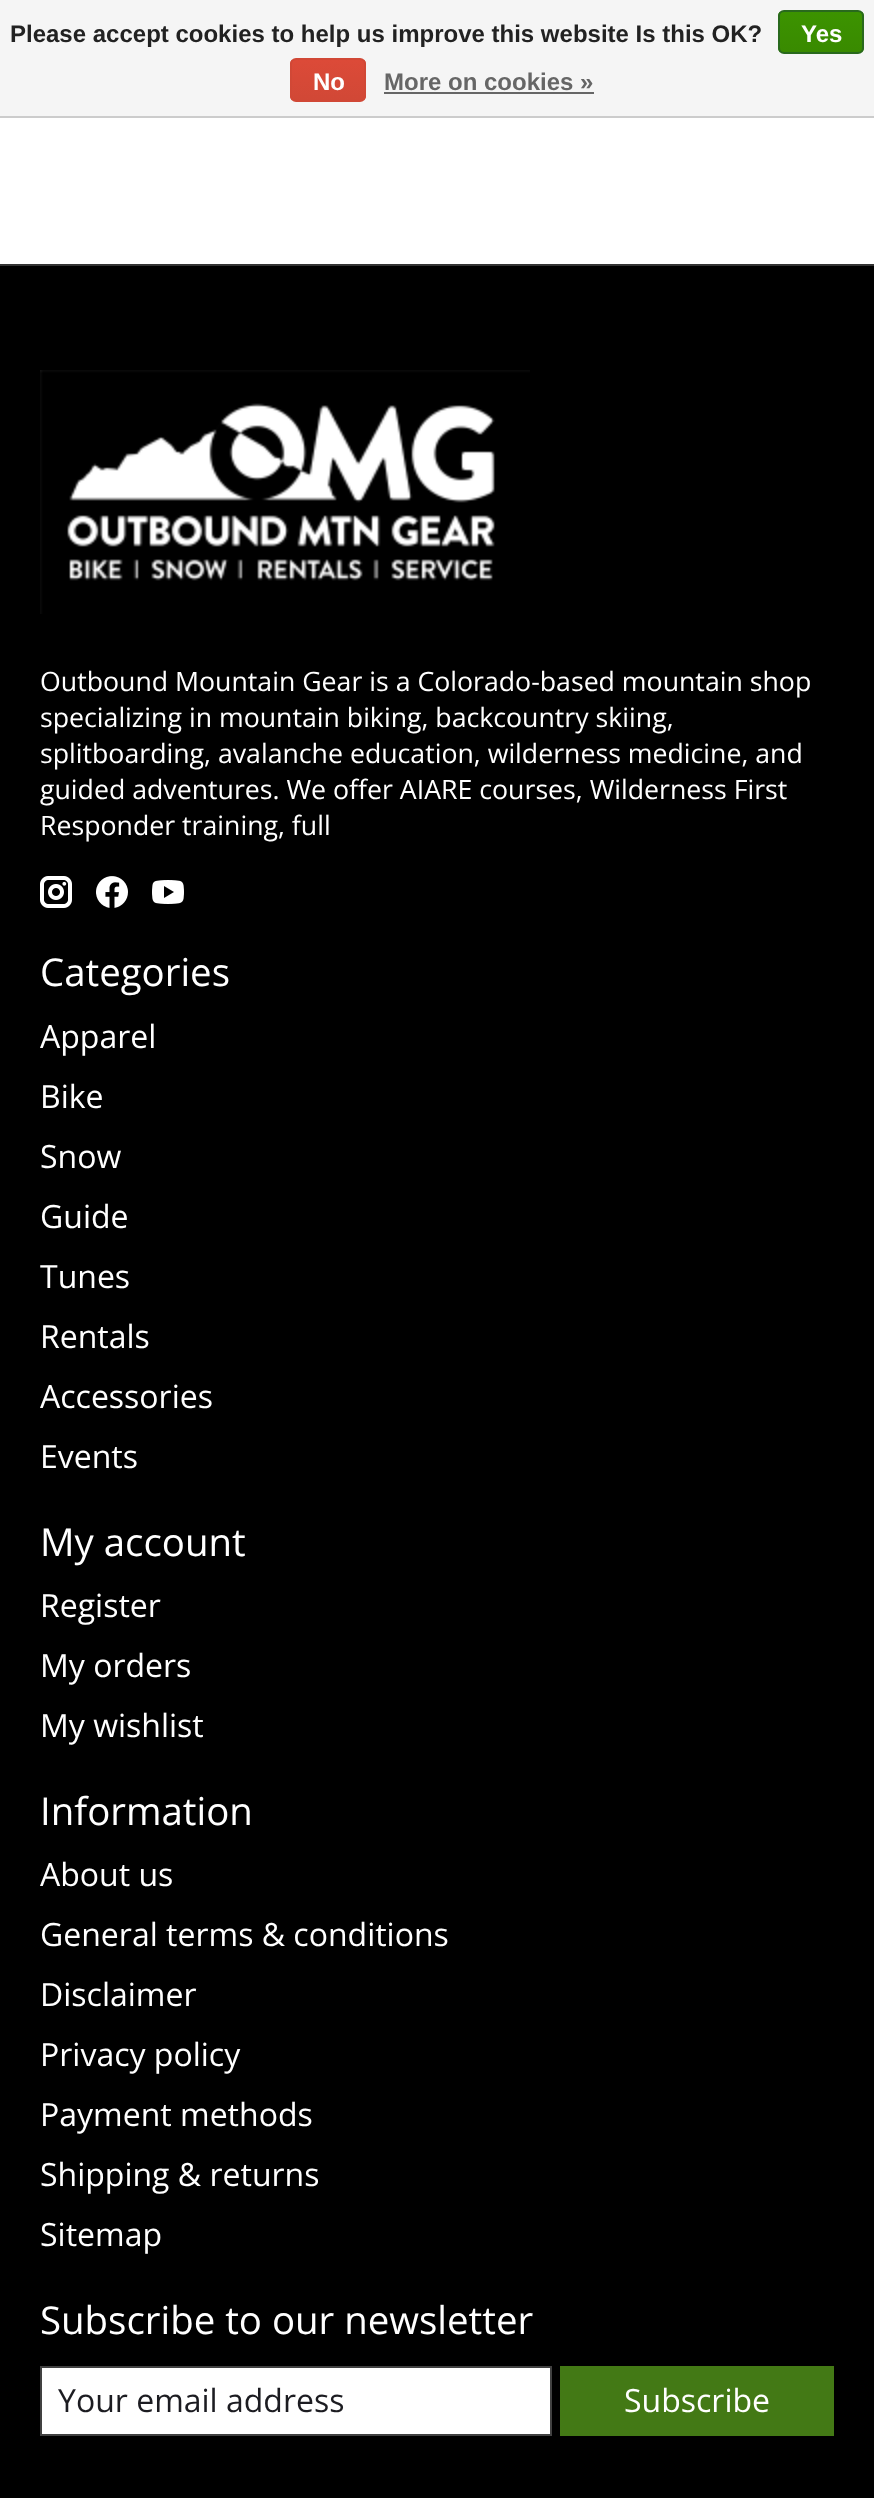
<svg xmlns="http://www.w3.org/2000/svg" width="874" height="2498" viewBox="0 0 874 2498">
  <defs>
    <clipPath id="clip1"><rect x="778" y="10" width="86" height="44" rx="6"/></clipPath>
    <linearGradient id="g1" gradientUnits="userSpaceOnUse" x1="821" y1="12" x2="821" y2="52"><stop offset="0" stop-color="rgb(60,147,0)"/><stop offset="1" stop-color="rgb(57,138,0)"/></linearGradient>
    <clipPath id="clip2"><rect x="290" y="58" width="76" height="44" rx="6"/></clipPath>
    <linearGradient id="g2" gradientUnits="userSpaceOnUse" x1="328" y1="60" x2="328" y2="100"><stop offset="0" stop-color="rgb(220,74,56)"/><stop offset="1" stop-color="rgb(209,72,54)"/></linearGradient>
  </defs>
  <rect width="100%" height="100%" fill="rgb(255,255,255)"/>
  <rect x="0" y="0" width="874" height="116" fill="rgb(245,245,245)"/>
  <rect x="0" y="116" width="874" height="2" fill="rgb(204,204,204)"/>
  <text x="10" y="42" font-family="Liberation Sans" font-size="24" font-weight="bold" fill="rgb(34,34,34)">Please accept cookies to help us improve this website Is this OK?</text>
  <g clip-path="url(#clip1)">
    <rect x="778" y="12" width="86" height="40" fill="url(#g1)"/>
  </g>
  <rect x="779" y="11" width="84" height="42" rx="5" fill="none" stroke="rgb(41,105,29)" stroke-width="2"/>
  <text x="801" y="42" font-family="Liberation Sans" font-size="24" font-weight="bold" fill="rgb(255,255,255)">Yes</text>
  <g clip-path="url(#clip2)">
    <rect x="290" y="60" width="76" height="40" fill="url(#g2)"/>
  </g>
  <rect x="291" y="59" width="74" height="42" rx="5" fill="none" stroke="rgb(209,72,54)" stroke-width="2"/>
  <text x="313" y="90" font-family="Liberation Sans" font-size="24" font-weight="bold" fill="rgb(255,255,255)">No</text>
  <text x="384" y="90" font-family="Liberation Sans" font-size="24" font-weight="bold" fill="rgb(102,102,102)">More on cookies »</text>
  <rect x="384" y="92" width="210" height="2" fill="rgb(102,102,102)"/>
  <rect x="0" y="266" width="874" height="2232" fill="rgb(0,0,0)"/>
  <rect x="0" y="264" width="874" height="2" fill="rgb(51,51,51)"/>
  <image x="40" y="370" width="490" height="244" href="pic1.png"/>
  <g font-family="Open Sans" font-size="26.7" fill="rgb(255,255,255)">
    <text>
      <tspan x="40" y="691">Outbound Mountain Gear is a Colorado-based mountain shop</tspan>
      <tspan x="40" y="727">specializing in mountain biking, backcountry skiing,</tspan>
      <tspan x="40" y="763">splitboarding, avalanche education, wilderness medicine, and</tspan>
      <tspan x="40" y="799">guided adventures. We offer AIARE courses, Wilderness First</tspan>
      <tspan x="40" y="835">Responder training, full</tspan>
    </text>
  </g>
  <image x="40" y="876" width="32" height="32" href="pic2.png"/>
  <image x="96" y="876" width="32" height="32" href="pic3.png"/>
  <image x="152" y="880" width="32" height="24" href="pic4.png"/>
  <text x="40" y="986" font-family="Open Sans" font-size="38.4" fill="rgb(255,255,255)">Categories</text>
  <g font-family="Open Sans" font-size="32" fill="rgb(255,255,255)">
    <text>
      <tspan x="40" y="1048">Apparel</tspan>
      <tspan x="40" y="1108">Bike</tspan>
      <tspan x="40" y="1168">Snow</tspan>
      <tspan x="40" y="1228">Guide</tspan>
      <tspan x="40" y="1288">Tunes</tspan>
      <tspan x="40" y="1348">Rentals</tspan>
      <tspan x="40" y="1408">Accessories</tspan>
      <tspan x="40" y="1468">Events</tspan>
    </text>
  </g>
  <text x="40" y="1556" font-family="Open Sans" font-size="38.4" fill="rgb(255,255,255)">My account</text>
  <g font-family="Open Sans" font-size="32" fill="rgb(255,255,255)">
    <text>
      <tspan x="40" y="1617">Register</tspan>
      <tspan x="40" y="1677">My orders</tspan>
      <tspan x="40" y="1737">My wishlist</tspan>
    </text>
  </g>
  <text x="40" y="1825" font-family="Open Sans" font-size="38.4" fill="rgb(255,255,255)">Information</text>
  <g font-family="Open Sans" font-size="32" fill="rgb(255,255,255)">
    <text>
      <tspan x="40" y="1886">About us</tspan>
      <tspan x="40" y="1946">General terms &amp; conditions</tspan>
      <tspan x="40" y="2006">Disclaimer</tspan>
      <tspan x="40" y="2066">Privacy policy</tspan>
      <tspan x="40" y="2126">Payment methods</tspan>
      <tspan x="40" y="2186">Shipping &amp; returns</tspan>
      <tspan x="40" y="2246">Sitemap</tspan>
    </text>
  </g>
  <text x="40" y="2334" font-family="Open Sans" font-size="38.4" fill="rgb(255,255,255)">Subscribe to our newsletter</text>
  <rect x="41" y="2367" width="510" height="68" fill="rgb(255,255,255)" stroke="rgb(65,65,65)" stroke-width="2"/>
  <text x="58" y="2412" font-family="Open Sans" font-size="32" fill="rgb(28,28,33)">Your email address</text>
  <rect x="560" y="2366" width="274" height="70" fill="rgb(67,121,21)"/>
  <text x="624" y="2412" font-family="Open Sans" font-size="32" fill="rgb(255,255,255)">Subscribe</text>
</svg>
